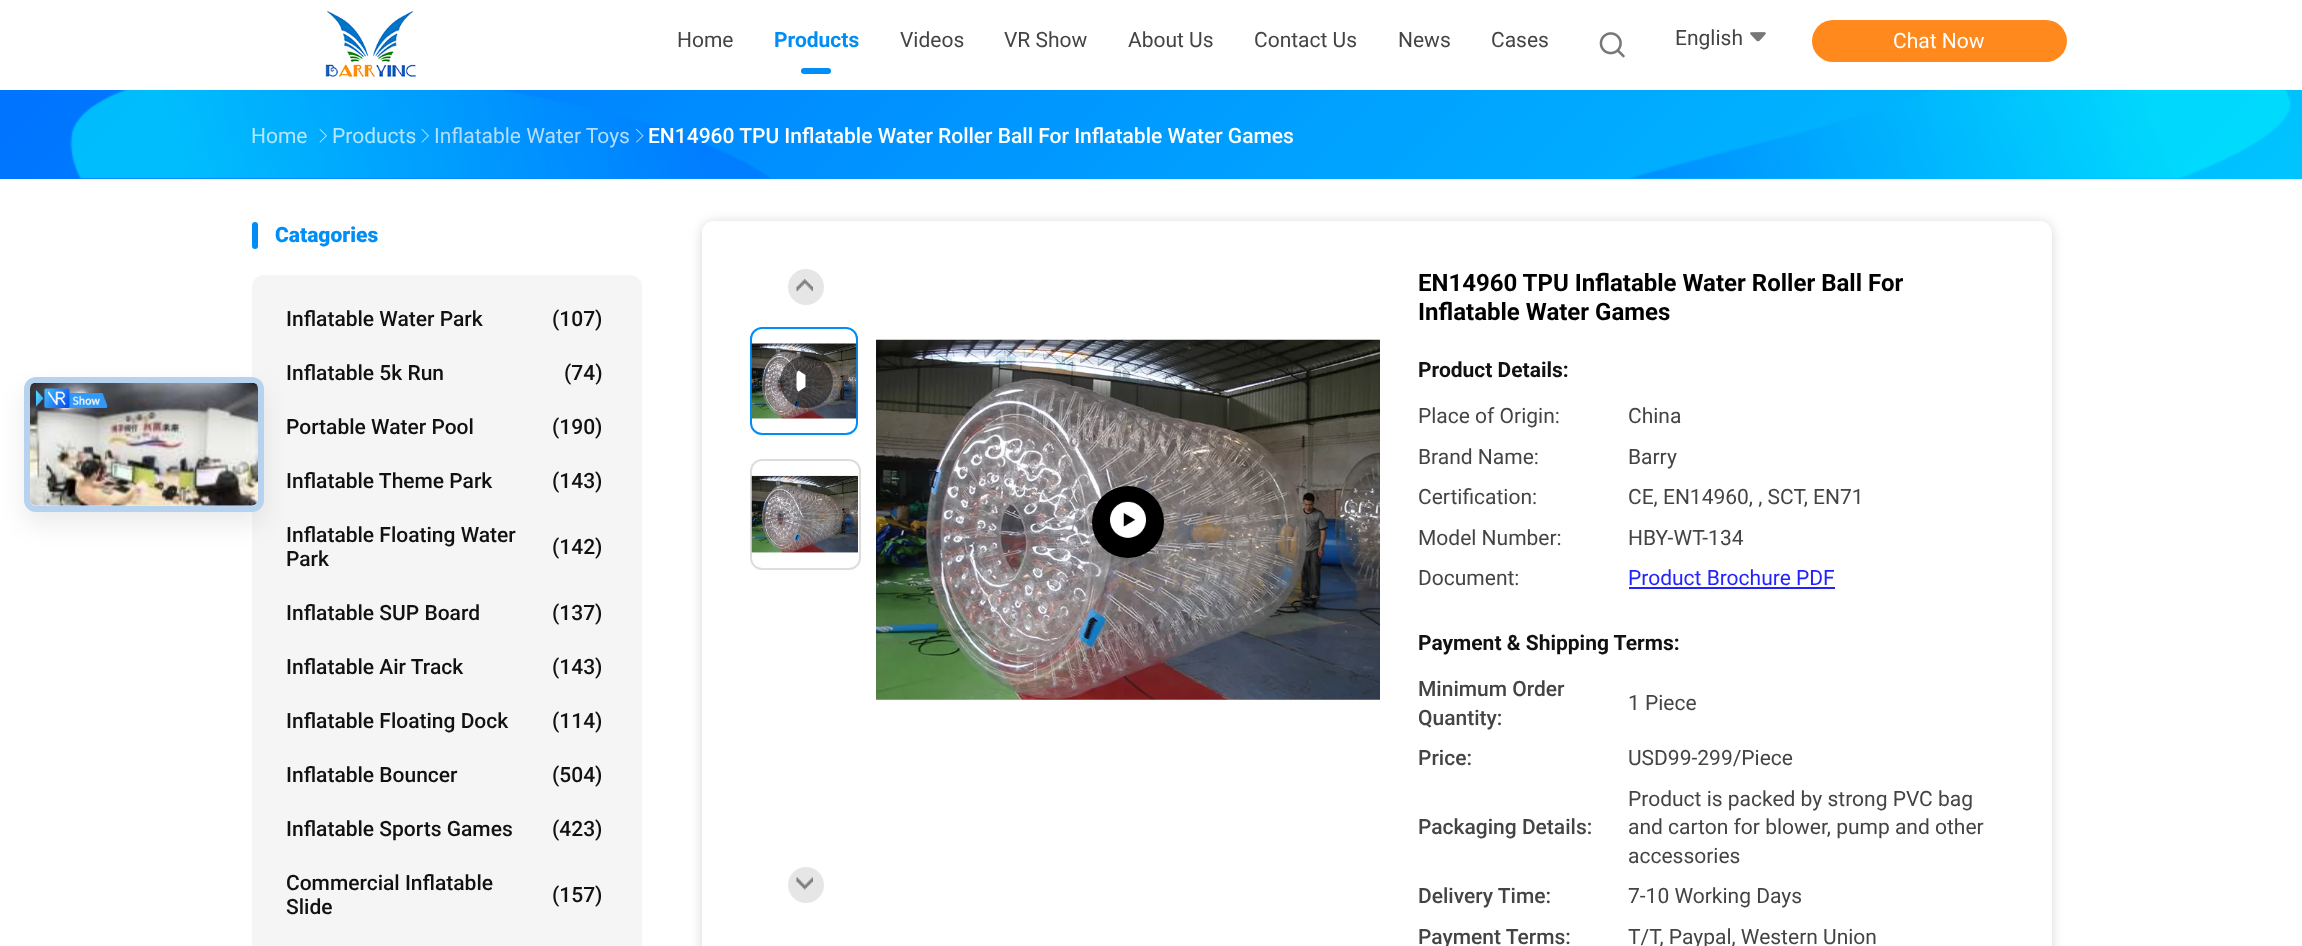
<svg xmlns="http://www.w3.org/2000/svg" width="2302" height="946" viewBox="0 0 2302 946">
  <defs>
    <linearGradient id="g1" gradientUnits="userSpaceOnUse" x1="553" y1="-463" x2="1749" y2="732"><stop offset="0" stop-color="rgb(0,115,255)"/><stop offset="1" stop-color="rgb(0,196,255)"/></linearGradient>
    <clipPath id="clip1"><path d="M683 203H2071V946H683ZM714 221H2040C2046.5 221 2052 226.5 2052 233V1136C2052 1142.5 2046.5 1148 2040 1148H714C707.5 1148 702 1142.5 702 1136V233C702 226.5 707.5 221 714 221Z" clip-rule="evenodd"/></clipPath>
  </defs>
  <rect width="100%" height="100%" fill="rgb(255,255,255)"/>
  <image x="325" y="11" width="91" height="66" href="pic1.png"/>
  <text x="677" y="47" font-family="Roboto" font-size="21" fill="rgb(68,68,68)">Home</text>
  <text x="774" y="47" font-family="Roboto" font-size="21" font-weight="bold" fill="rgb(0,142,246)">Products</text>
  <rect x="801" y="68" width="30" height="6" rx="3" fill="rgb(0,142,246)"/>
  <g font-family="Roboto" font-size="21" fill="rgb(68,68,68)">
    <text x="900" y="47">Videos</text>
    <text x="1004" y="47">VR Show</text>
    <text x="1128" y="47">About Us</text>
    <text x="1254" y="47">Contact Us</text>
    <text x="1398" y="47">News</text>
    <text x="1491" y="47">Cases</text>
  </g>
  <image x="1599" y="32" width="26" height="26" href="pic2.png"/>
  <text x="1675" y="45" font-family="Roboto" font-size="21" fill="rgb(68,68,68)">English</text>
  <image x="1750" y="32" width="16" height="10" href="pic3.png"/>
  <rect x="1812" y="20" width="255" height="42" rx="21" fill="rgb(255,137,28)"/>
  <text x="1893" y="48" font-family="Roboto" font-size="21" fill="rgb(255,255,255)">Chat Now</text>
  <rect x="0" y="90" width="2302" height="89" fill="url(#g1)"/>
  <image x="70" y="90" width="701" height="89" href="pic4.png"/>
  <image x="1630" y="90" width="661" height="89" href="pic5.png"/>
  <text x="251" y="143" font-family="Roboto" font-size="21" fill="rgb(179,231,255)">Home</text>
  <image x="319" y="128" width="8" height="15" href="pic6.png"/>
  <text x="332" y="143" font-family="Roboto" font-size="21" fill="rgb(179,231,255)">Products</text>
  <image x="421" y="128" width="8" height="15" href="pic7.png"/>
  <text x="434" y="143" font-family="Roboto" font-size="21" fill="rgb(179,222,255)">Inflatable Water Toys</text>
  <image x="636" y="128" width="8" height="15" href="pic8.png"/>
  <text x="648" y="143" font-family="Roboto" font-size="21" font-weight="500" fill="rgb(255,255,255)">EN14960 TPU Inflatable Water Roller Ball For Inflatable Water Games</text>
  <rect x="252" y="275" width="390" height="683" rx="12" fill="rgb(245,245,245)"/>
  <rect x="24" y="389" width="240" height="135" rx="12" fill="rgba(0,0,0,0.08)" filter="blur(12px)"/>
  <rect x="24" y="377" width="240" height="135" rx="12" fill="rgb(238,238,238)"/>
  <rect x="27" y="380" width="234" height="129" rx="9" fill="none" stroke="rgba(4,120,237,0.24)" stroke-width="6"/>
  <rect x="30" y="383" width="228" height="123" rx="6" fill="rgb(238,238,238)"/>
  <image x="30" y="383" width="228" height="123" href="pic9.png"/>
  <image x="36" y="388" width="72" height="20" href="pic10.png"/>
  <rect x="252" y="222" width="6" height="27" rx="3" fill="rgb(0,142,246)"/>
  <text x="275" y="242" font-family="Roboto" font-size="21" font-weight="900" fill="rgb(0,142,246)">Catagories</text>
  <g font-family="Roboto" font-size="21" font-weight="500" fill="rgb(17,17,17)">
    <text x="286" y="326">Inflatable Water Park</text>
    <text x="552" y="326">(107)</text>
    <text x="286" y="380">Inflatable 5k Run</text>
    <text x="564" y="380">(74)</text>
    <text x="286" y="434">Portable Water Pool</text>
    <text x="552" y="434">(190)</text>
    <text x="286" y="488">Inflatable Theme Park</text>
    <text x="552" y="488">(143)</text>
    <text x="286" y="542">Inflatable Floating Water</text>
    <text x="552" y="554">(142)</text>
    <text x="286" y="566">Park</text>
    <text x="286" y="620">Inflatable SUP Board</text>
    <text x="552" y="620">(137)</text>
    <text x="286" y="674">Inflatable Air Track</text>
    <text x="552" y="674">(143)</text>
    <text x="286" y="728">Inflatable Floating Dock</text>
    <text x="552" y="728">(114)</text>
    <text x="286" y="782">Inflatable Bouncer</text>
    <text x="552" y="782">(504)</text>
    <text x="286" y="836">Inflatable Sports Games</text>
    <text x="552" y="836">(423)</text>
    <text>
      <tspan x="286" y="890">Commercial Inflatable</tspan>
      <tspan x="286" y="914">Slide</tspan>
    </text>
    <text x="552" y="902">(157)</text>
  </g>
  <g clip-path="url(#clip1)">
    <rect x="702" y="222" width="1350" height="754" rx="12" fill="rgba(0,0,0,0.16)" filter="blur(6px)"/>
  </g>
  <circle cx="806" cy="287" r="18" fill="rgb(230,230,230)"/>
  <image x="796" y="279" width="17" height="12" href="pic11.png"/>
  <rect x="751" y="328" width="106" height="106" rx="11" fill="none" stroke="rgb(0,142,246)" stroke-width="2"/>
  <image x="751" y="343" width="106" height="76" href="pic12.png"/>
  <rect x="780" y="356" width="53" height="52" rx="26" fill="rgba(0,0,0,0.5)"/>
  <path d="M796.5 376C796.5 373.5 797 371.5 798.5 370.5L805.5 375V387L798.5 391.5C797.5 391 797 389.5 796.5 388Z" fill="rgb(255,255,255)"/>
  <rect x="751" y="460" width="109" height="109" rx="11" fill="none" stroke="rgb(221,221,221)" stroke-width="2"/>
  <image x="751" y="475" width="107" height="78" href="pic13.png"/>
  <circle cx="806" cy="885" r="18" fill="rgb(230,230,230)"/>
  <image x="796" y="877" width="17" height="13" href="pic14.png"/>
  <image x="876" y="339" width="504" height="361" href="pic15.png"/>
  <circle cx="1128" cy="522" r="36" fill="rgb(0,0,0)"/>
  <image x="1110" y="501" width="36" height="37" href="pic16.png"/>
  <g font-family="Roboto" font-size="24" font-weight="bold" fill="rgb(0,0,0)">
    <text>
      <tspan x="1418" y="291">EN14960 TPU Inflatable Water Roller Ball For</tspan>
      <tspan x="1418" y="320">Inflatable Water Games</tspan>
    </text>
  </g>
  <text x="1418" y="377" font-family="Roboto" font-size="21" font-weight="bold" fill="rgb(17,17,17)">Product Details:</text>
  <g font-family="Roboto" font-size="21" fill="rgb(68,68,68)">
    <text x="1418" y="423">Place of Origin:</text>
    <text x="1628" y="423">China</text>
    <text x="1418" y="464">Brand Name:</text>
    <text x="1628" y="464">Barry</text>
    <text x="1418" y="504">Certification:</text>
    <text x="1628" y="504">CE, EN14960, , SCT, EN71</text>
    <text x="1418" y="545">Model Number:</text>
    <text x="1628" y="545">HBY-WT-134</text>
    <text x="1418" y="585">Document:</text>
  </g>
  <text x="1628" y="585" font-family="Roboto" font-size="21" fill="rgb(35,35,255)">Product Brochure PDF</text>
  <rect x="1629" y="587" width="206" height="2" fill="rgb(35,35,255)"/>
  <text x="1418" y="650" font-family="Roboto" font-size="21" font-weight="bold" fill="rgb(17,17,17)">Payment &amp; Shipping Terms:</text>
  <g font-family="Roboto" font-size="21" font-weight="500" fill="rgb(68,68,68)">
    <text>
      <tspan x="1418" y="696">Minimum Order</tspan>
      <tspan x="1418" y="725">Quantity:</tspan>
    </text>
  </g>
  <text x="1628" y="710" font-family="Roboto" font-size="21" fill="rgb(68,68,68)">1 Piece</text>
  <text x="1418" y="765" font-family="Roboto" font-size="21" font-weight="500" fill="rgb(68,68,68)">Price:</text>
  <text x="1628" y="765" font-family="Roboto" font-size="21" fill="rgb(68,68,68)">USD99-299/Piece</text>
  <text x="1418" y="834" font-family="Roboto" font-size="21" font-weight="500" fill="rgb(68,68,68)">Packaging Details:</text>
  <g font-family="Roboto" font-size="21" fill="rgb(68,68,68)">
    <text>
      <tspan x="1628" y="806">Product is packed by strong PVC bag</tspan>
      <tspan x="1628" y="834">and carton for blower, pump and other</tspan>
      <tspan x="1628" y="863">accessories</tspan>
    </text>
  </g>
  <text x="1418" y="903" font-family="Roboto" font-size="21" font-weight="500" fill="rgb(68,68,68)">Delivery Time:</text>
  <text x="1628" y="903" font-family="Roboto" font-size="21" fill="rgb(68,68,68)">7-10 Working Days</text>
  <text x="1418" y="944" font-family="Roboto" font-size="21" font-weight="500" fill="rgb(68,68,68)">Payment Terms:</text>
  <text x="1628" y="944" font-family="Roboto" font-size="21" fill="rgb(68,68,68)">T/T, Paypal, Western Union</text>
</svg>
